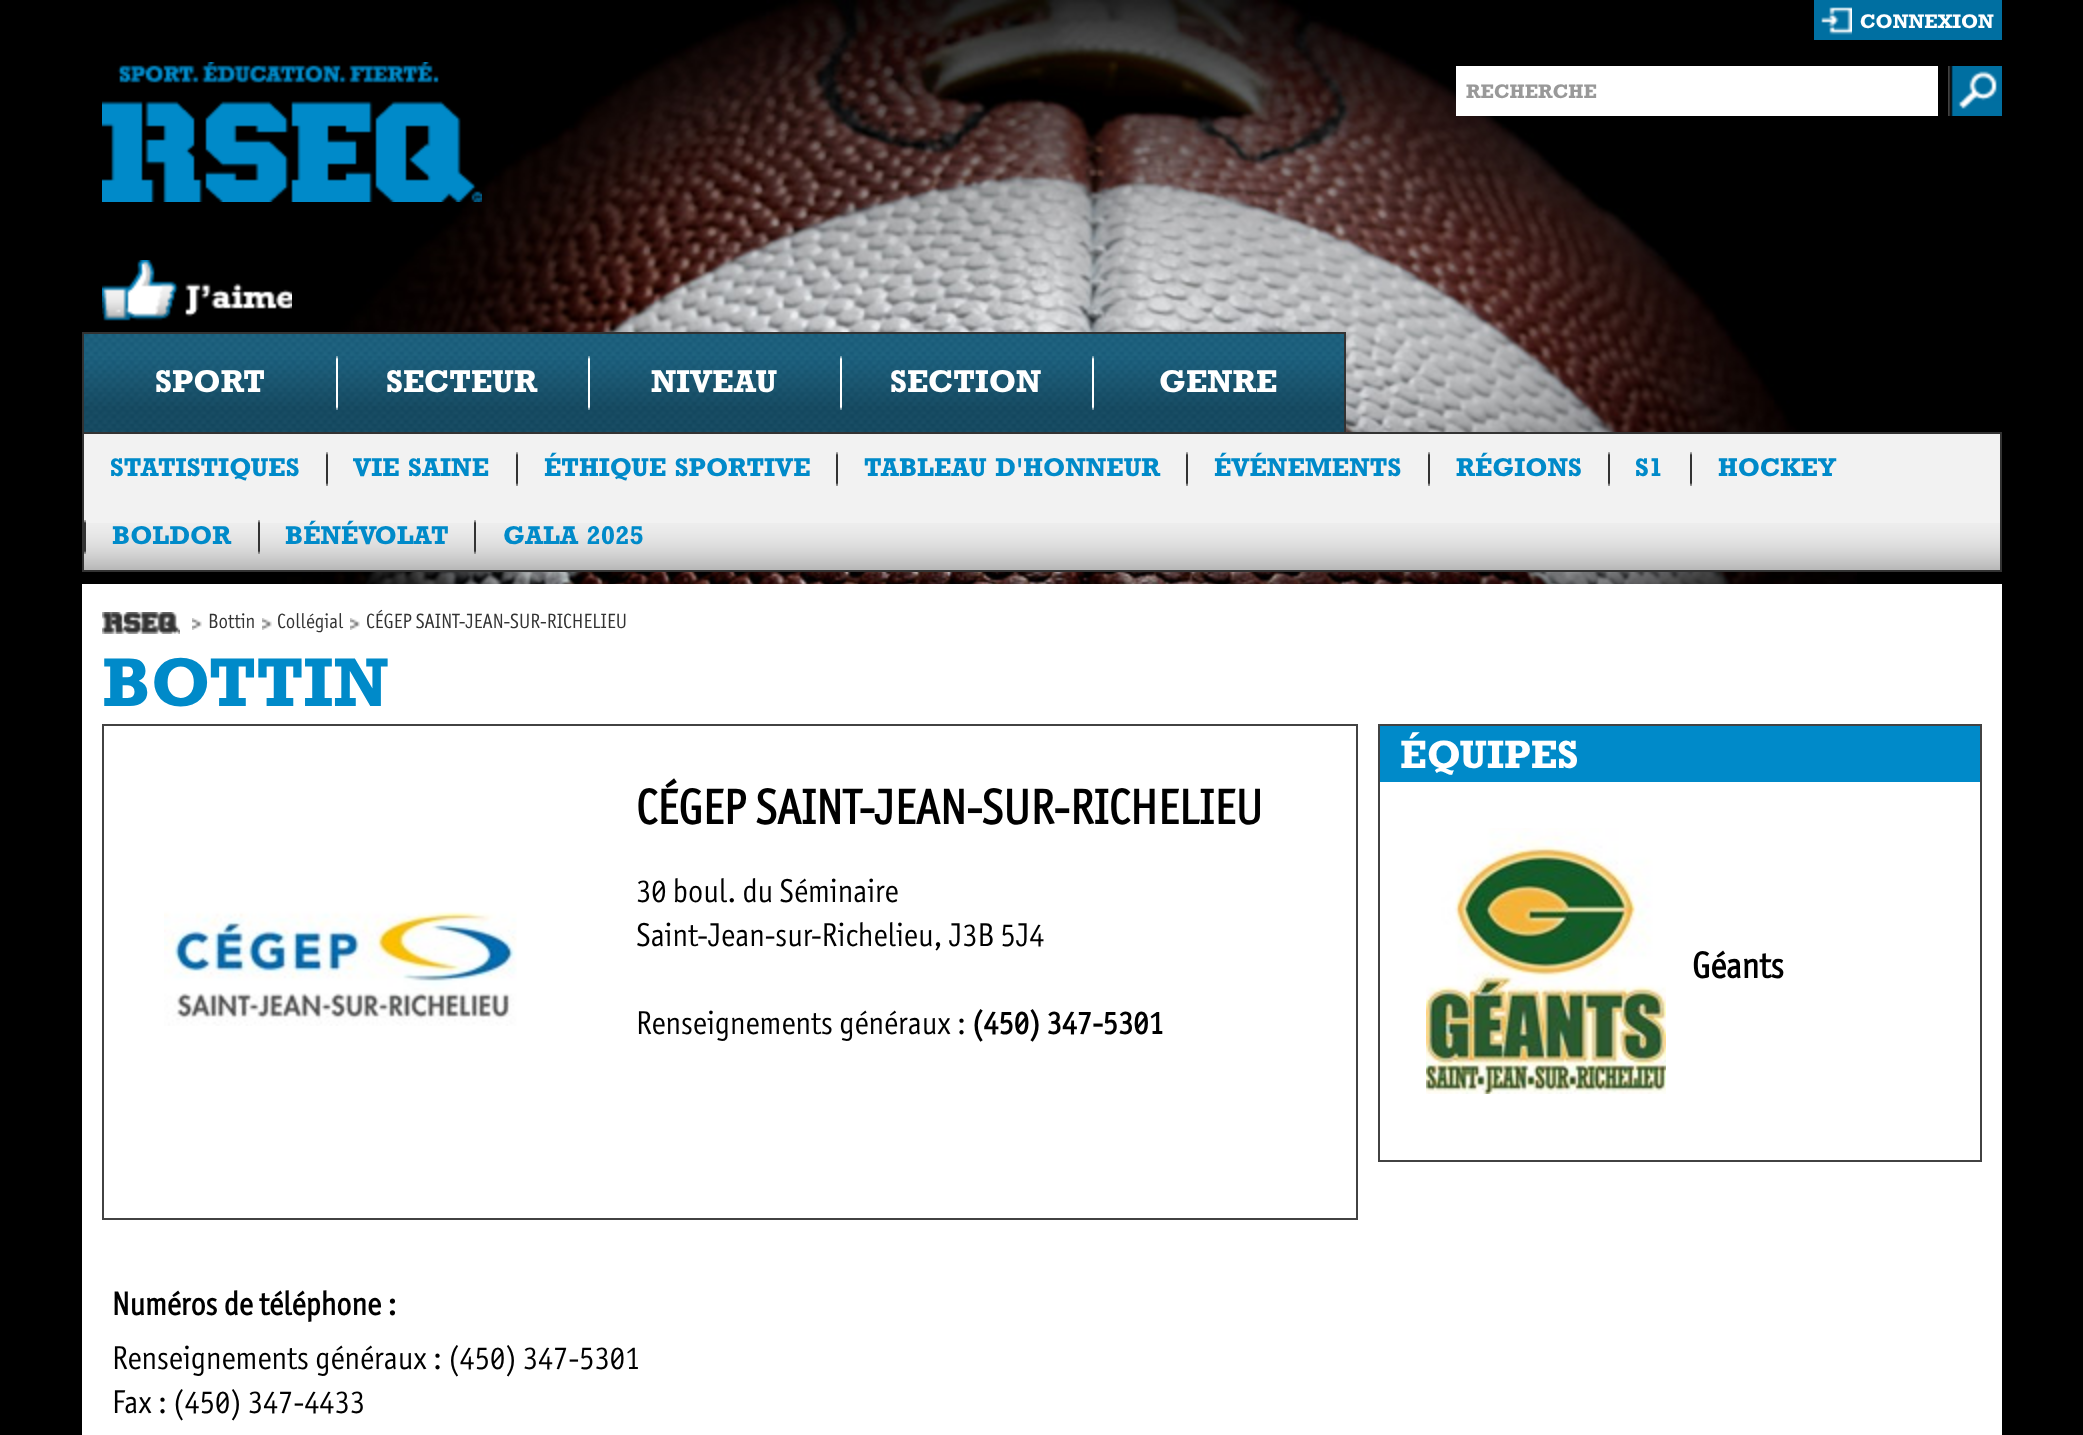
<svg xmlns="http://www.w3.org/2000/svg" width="2083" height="1435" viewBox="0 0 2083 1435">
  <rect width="100%" height="100%" fill="rgb(0,0,0)"/>
  <image x="287" y="0" width="1570" height="584" href="pic1.png"/>
  <image x="102" y="62" width="380" height="140" href="pic2.png"/>
  <image x="102" y="260" width="190" height="61" href="pic3.png"/>
  <rect x="1814" y="0" width="188" height="40" fill="rgb(0,111,161)"/>
  <image x="1821" y="7" width="31" height="28" href="pic4.png"/>
  <text x="1860" y="28" font-family="Rockwell" font-size="20" font-weight="bold" fill="rgb(255,255,255)">CONNEXION</text>
  <rect x="1456" y="66" width="482" height="50" fill="rgb(255,255,255)"/>
  <text x="1466" y="98" font-family="Rockwell" font-size="20" font-weight="bold" fill="rgb(153,153,153)">RECHERCHE</text>
  <image x="1948" y="66" width="54" height="50" href="pic5.png"/>
  <image x="84" y="334" width="1260" height="98" href="pic6.png"/>
  <rect x="82" y="332" width="1264" height="2" fill="rgb(50,50,50)"/>
  <rect x="1344" y="332" width="2" height="100" fill="rgb(50,50,50)"/>
  <rect x="82" y="332" width="2" height="100" fill="rgb(50,50,50)"/>
  <text x="155" y="392" font-family="Rockwell" font-size="32" font-weight="bold" fill="rgb(255,255,255)">SPORT</text>
  <image x="336" y="356" width="2" height="54" href="pic7.png"/>
  <text x="386" y="392" font-family="Rockwell" font-size="32" font-weight="bold" fill="rgb(255,255,255)">SECTEUR</text>
  <image x="588" y="356" width="2" height="54" href="pic7.png"/>
  <text x="651" y="392" font-family="Rockwell" font-size="32" font-weight="bold" fill="rgb(255,255,255)">NIVEAU</text>
  <image x="840" y="356" width="2" height="54" href="pic7.png"/>
  <text x="890" y="392" font-family="Rockwell" font-size="32" font-weight="bold" fill="rgb(255,255,255)">SECTION</text>
  <image x="1092" y="356" width="2" height="54" href="pic7.png"/>
  <text x="1159" y="392" font-family="Rockwell" font-size="32" font-weight="bold" fill="rgb(255,255,255)">GENRE</text>
  <rect x="84" y="434" width="1916" height="89" fill="rgb(242,242,242)"/>
  <image x="84" y="523" width="1916" height="47" href="pic8.png"/>
  <rect x="83" y="433" width="1918" height="138" fill="none" stroke="rgb(51,51,51)" stroke-width="2"/>
  <text x="110" y="476" font-family="Rockwell" font-size="26" font-weight="bold" fill="rgb(0,138,201)">STATISTIQUES</text>
  <image x="326" y="452" width="2" height="34" href="pic9.png"/>
  <text x="353" y="476" word-spacing="2" font-family="Rockwell" font-size="26" font-weight="bold" fill="rgb(0,138,201)">VIE SAINE</text>
  <image x="516" y="452" width="2" height="34" href="pic9.png"/>
  <text x="544" y="476" word-spacing="2" font-family="Rockwell" font-size="26" font-weight="bold" fill="rgb(0,138,201)">ÉTHIQUE SPORTIVE</text>
  <image x="836" y="452" width="2" height="34" href="pic9.png"/>
  <text x="864" y="476" word-spacing="2" font-family="Rockwell" font-size="26" font-weight="bold" fill="rgb(0,138,201)">TABLEAU D'HONNEUR</text>
  <image x="1186" y="452" width="2" height="34" href="pic9.png"/>
  <text x="1214" y="476" font-family="Rockwell" font-size="26" font-weight="bold" fill="rgb(0,138,201)">ÉVÉNEMENTS</text>
  <image x="1428" y="452" width="2" height="34" href="pic9.png"/>
  <text x="1456" y="476" font-family="Rockwell" font-size="26" font-weight="bold" fill="rgb(0,138,201)">RÉGIONS</text>
  <image x="1608" y="452" width="2" height="34" href="pic9.png"/>
  <text x="1635" y="476" font-family="Rockwell" font-size="26" font-weight="bold" fill="rgb(0,138,201)">S1</text>
  <image x="1690" y="452" width="2" height="34" href="pic9.png"/>
  <text x="1718" y="476" font-family="Rockwell" font-size="26" font-weight="bold" fill="rgb(0,138,201)">HOCKEY</text>
  <image x="84" y="520" width="2" height="34" href="pic9.png"/>
  <text x="112" y="544" font-family="Rockwell" font-size="26" font-weight="bold" fill="rgb(0,138,201)">BOLDOR</text>
  <image x="258" y="520" width="2" height="34" href="pic9.png"/>
  <text x="285" y="544" font-family="Rockwell" font-size="26" font-weight="bold" fill="rgb(0,138,201)">BÉNÉVOLAT</text>
  <image x="474" y="520" width="2" height="34" href="pic9.png"/>
  <text x="503" y="544" word-spacing="2" font-family="Rockwell" font-size="26" font-weight="bold" fill="rgb(0,138,201)">GALA 2025</text>
  <rect x="82" y="584" width="1920" height="851" fill="rgb(255,255,255)"/>
  <image x="102" y="612" width="78" height="22" href="pic10.png"/>
  <image x="192" y="618" width="10" height="12" href="pic11.png"/>
  <text x="208" y="628" font-family="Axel" font-size="20" fill="rgb(51,51,51)">Bottin</text>
  <image x="262" y="618" width="10" height="12" href="pic11.png"/>
  <text x="277" y="628" font-family="Axel" font-size="20" fill="rgb(51,51,51)">Collégial</text>
  <image x="350" y="618" width="10" height="12" href="pic11.png"/>
  <text x="366" y="628" font-family="Axel" font-size="20" fill="rgb(51,51,51)">CÉGEP SAINT-JEAN-SUR-RICHELIEU</text>
  <text x="102" y="706" font-family="Rockwell" font-size="70" font-weight="bold" fill="rgb(0,138,201)">BOTTIN</text>
  <rect x="103" y="725" width="1254" height="494" fill="none" stroke="rgb(66,66,66)" stroke-width="2"/>
  <image x="164" y="911" width="353" height="115" href="pic12.png"/>
  <text x="636" y="824" font-family="Axel" font-size="48" font-weight="bold" fill="rgb(0,0,0)">CÉGEP SAINT-JEAN-SUR-RICHELIEU</text>
  <g font-family="Axel" font-size="32" fill="rgb(0,0,0)">
    <text>
      <tspan x="636" y="902">30 boul. du Séminaire</tspan>
      <tspan x="636" y="946">Saint-Jean-sur-Richelieu, J3B 5J4</tspan>
    </text>
    <text x="636" y="1034">Renseignements généraux :</text>
  </g>
  <g font-family="Axel" font-size="32" font-weight="bold" fill="rgb(0,0,0)">
    <text x="972" y="1034">(450) 347-5301</text>
    <text x="112" y="1315">Numéros de téléphone :</text>
  </g>
  <g font-family="Axel" font-size="32" fill="rgb(0,0,0)">
    <text>
      <tspan x="112" y="1369">Renseignements généraux : (450) 347-5301</tspan>
      <tspan x="112" y="1413">Fax : (450) 347-4433</tspan>
    </text>
  </g>
  <rect x="1379" y="725" width="602" height="436" fill="none" stroke="rgb(66,66,66)" stroke-width="2"/>
  <rect x="1380" y="726" width="600" height="56" fill="rgb(0,138,201)"/>
  <text x="1400" y="768" font-family="Rockwell" font-size="40" font-weight="bold" fill="rgb(255,255,255)">ÉQUIPES</text>
  <image x="1426" y="828" width="240" height="266" href="pic13.png"/>
  <text x="1692" y="978" font-family="Axel" font-size="36" font-weight="bold" fill="rgb(0,0,0)">Géants</text>
</svg>
